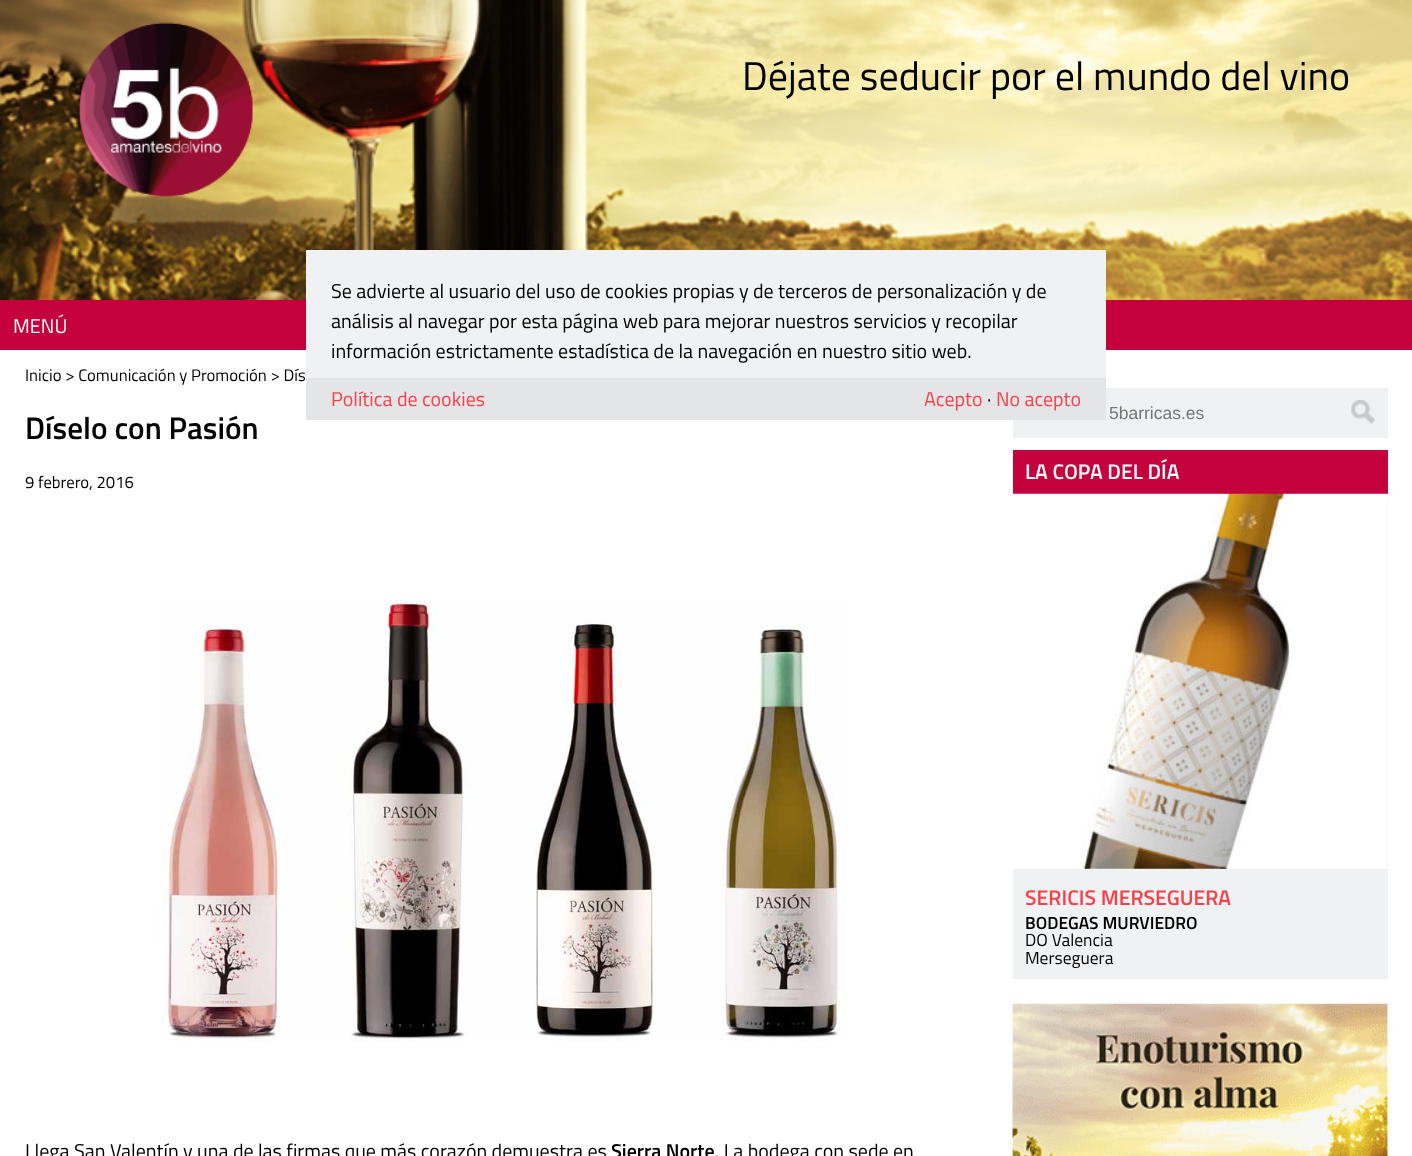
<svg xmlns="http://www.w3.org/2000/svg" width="1412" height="1156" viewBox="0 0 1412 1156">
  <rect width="100%" height="100%" fill="rgb(255,255,255)"/>
  <image x="0" y="0" width="1412" height="300" href="pic1.png"/>
  <image x="78" y="22" width="175" height="175" href="pic2.png"/>
  <text x="742" y="90" font-family="Titillium Web" font-size="40" fill="rgb(0,0,0)">Déjate seducir por el mundo del vino</text>
  <rect x="0" y="300" width="1412" height="50" fill="rgb(196,0,61)"/>
  <text x="13" y="333" font-family="Titillium Web" font-size="20" fill="rgb(255,255,255)">MENÚ</text>
  <rect x="306" y="250" width="800" height="128" fill="rgb(240,241,242)"/>
  <g font-family="Titillium Web" font-size="20" fill="rgb(0,0,0)">
    <text>
      <tspan x="331" y="298">Se advierte al usuario del uso de cookies propias y de terceros de personalización y de</tspan>
      <tspan x="331" y="328">análisis al navegar por esta página web para mejorar nuestros servicios y recopilar</tspan>
      <tspan x="331" y="358">información estrictamente estadística de la navegación en nuestro sitio web.</tspan>
    </text>
  </g>
  <rect x="1013" y="388" width="375" height="50" fill="rgb(240,241,242)"/>
  <rect x="306" y="378" width="800" height="42" fill="rgb(227,229,231)"/>
  <g font-family="Titillium Web" font-size="20" fill="rgb(247,65,73)">
    <text x="331" y="406">Política de cookies</text>
    <text x="924" y="406">Acepto</text>
  </g>
  <text x="987" y="406" font-family="Titillium Web" font-size="20" fill="rgb(0,0,0)">·</text>
  <text x="996" y="406" font-family="Titillium Web" font-size="20" fill="rgb(247,65,73)">No acepto</text>
  <text x="25" y="381" font-family="Titillium Web" font-size="16.7" fill="rgb(0,0,0)">Inicio &gt; Comunicación y Promoción &gt; Dís</text>
  <text x="25" y="439" font-family="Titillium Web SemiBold" font-size="31.25" font-weight="600" fill="rgb(0,0,0)">Díselo con Pasión</text>
  <text x="25" y="488" font-family="Titillium Web" font-size="16.7" fill="rgb(0,0,0)">9 febrero, 2016</text>
  <image x="161" y="600" width="685" height="442" href="pic3.png"/>
  <text x="25" y="1158" font-family="Titillium Web" font-size="20" fill="rgb(0,0,0)">Llega San Valentín y una de las firmas que más corazón demuestra es</text>
  <text x="611" y="1158" font-family="Titillium Web SemiBold" font-size="20" font-weight="600" fill="rgb(0,0,0)">Sierra Norte</text>
  <text x="715" y="1158" font-family="Titillium Web" font-size="20" fill="rgb(0,0,0)">. La bodega con sede en</text>
  <text x="1109" y="419" font-family="Liberation Sans" font-size="17.5" fill="rgb(117,117,117)">5barricas.es</text>
  <image x="1351" y="400" width="24" height="24" href="pic4.png"/>
  <rect x="1013" y="494" width="375" height="485" fill="rgb(240,241,242)"/>
  <rect x="1013" y="450" width="375" height="44" fill="rgb(196,0,61)"/>
  <text x="1025" y="479" font-family="Titillium Web SemiBold" font-size="21.25" font-weight="600" fill="rgb(255,255,255)">LA COPA DEL DÍA</text>
  <image x="1013" y="493" width="375" height="376" href="pic5.png"/>
  <text x="1025" y="905" font-family="Titillium Web SemiBold" font-size="21.25" font-weight="600" fill="rgb(247,65,73)">SERICIS MERSEGUERA</text>
  <text x="1025" y="929" font-family="Titillium Web SemiBold" font-size="17.5" font-weight="600" fill="rgb(0,0,0)">BODEGAS MURVIEDRO</text>
  <g font-family="Titillium Web" font-size="17.5" fill="rgb(0,0,0)">
    <text>
      <tspan x="1025" y="946">DO Valencia</tspan>
      <tspan x="1025" y="964">Merseguera</tspan>
    </text>
  </g>
  <image x="1012" y="1003" width="376" height="153" href="pic6.png"/>
</svg>
